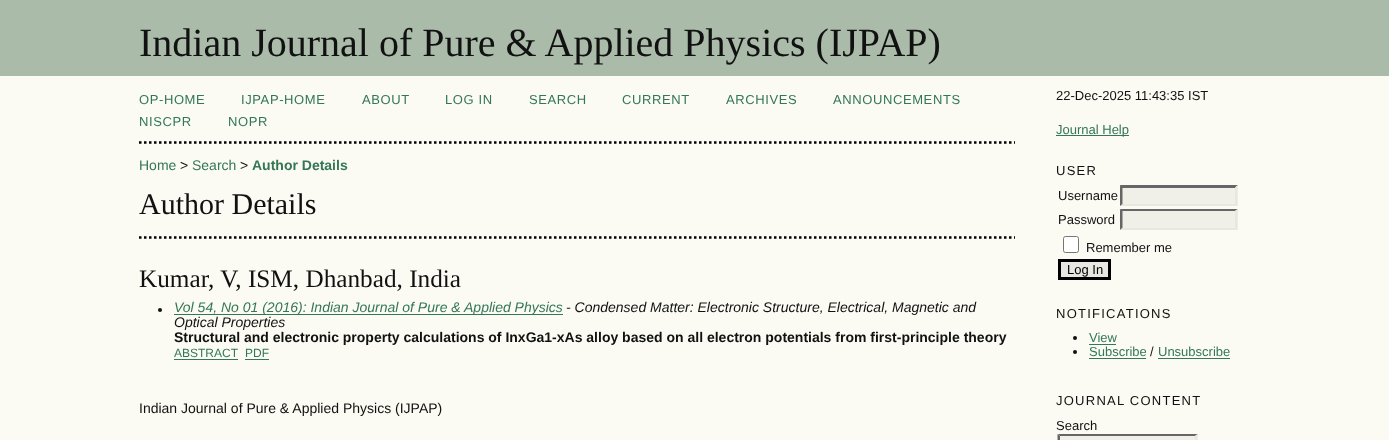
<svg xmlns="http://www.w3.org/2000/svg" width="1389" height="440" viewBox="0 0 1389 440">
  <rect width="100%" height="100%" fill="rgb(251,251,243)"/>
  <rect x="0" y="0" width="1389" height="76" fill="rgb(170,187,170)"/>
  <text x="139" y="56" font-family="Liberation Serif" font-size="40" fill="rgb(17,17,17)">Indian Journal of Pure &amp; Applied Physics (IJPAP)</text>
  <path d="M139 142.5H1015" fill="none" stroke="rgb(0,0,0)" stroke-width="2.5" stroke-dasharray="2.5 2.5"/>
  <g font-family="Liberation Sans" font-size="13" letter-spacing="0.6" fill="rgb(51,119,85)">
    <text x="139" y="104">OP-HOME</text>
    <text x="241" y="104">IJPAP-HOME</text>
    <text x="362" y="104">ABOUT</text>
    <text x="445" y="104">LOG IN</text>
    <text x="529" y="104">SEARCH</text>
    <text x="622" y="104">CURRENT</text>
    <text x="726" y="104">ARCHIVES</text>
    <text x="833" y="104">ANNOUNCEMENTS</text>
    <text x="139" y="126">NISCPR</text>
    <text x="228" y="126">NOPR</text>
  </g>
  <text x="139" y="170" font-family="Liberation Sans" font-size="14" fill="rgb(51,119,85)">Home</text>
  <text x="180" y="170" font-family="Liberation Sans" font-size="14" fill="rgb(17,17,17)">&gt;</text>
  <text x="192" y="170" font-family="Liberation Sans" font-size="14" fill="rgb(51,119,85)">Search</text>
  <text x="240" y="170" font-family="Liberation Sans" font-size="14" fill="rgb(17,17,17)">&gt;</text>
  <text x="252" y="170" font-family="Liberation Sans" font-size="14" font-weight="bold" fill="rgb(51,119,85)">Author Details</text>
  <text x="139" y="214" font-family="Liberation Serif" font-size="30" fill="rgb(17,17,17)">Author Details</text>
  <path d="M139 237.5H1015" fill="none" stroke="rgb(0,0,0)" stroke-width="2.5" stroke-dasharray="2.5 2.5"/>
  <text x="139" y="287" font-family="Liberation Serif" font-size="25.25" fill="rgb(17,17,17)">Kumar, V, ISM, Dhanbad, India</text>
  <circle cx="160" cy="310" r="2" fill="rgb(17,17,17)"/>
  <rect x="174" y="314" width="389" height="1" fill="rgb(51,119,85)"/>
  <text x="174" y="312" font-family="Liberation Sans" font-size="14" font-style="italic" fill="rgb(51,119,85)">Vol 54, No 01 (2016): Indian Journal of Pure &amp; Applied Physics</text>
  <g font-family="Liberation Sans" font-size="14" font-style="italic" fill="rgb(17,17,17)">
    <text x="566" y="312">- Condensed Matter: Electronic Structure, Electrical, Magnetic and</text>
    <text x="174" y="327">Optical Properties</text>
  </g>
  <text x="174" y="342" font-family="Liberation Sans" font-size="14" font-weight="bold" fill="rgb(17,17,17)">Structural and electronic property calculations of InxGa1-xAs alloy based on all electron potentials from first-principle theory</text>
  <text x="174" y="357" font-family="Liberation Sans" font-size="12" fill="rgb(51,119,85)">ABSTRACT</text>
  <rect x="174" y="359" width="64" height="1" fill="rgb(51,119,85)"/>
  <text x="245" y="357" font-family="Liberation Sans" font-size="12" fill="rgb(51,119,85)">PDF</text>
  <rect x="245" y="359" width="24" height="1" fill="rgb(51,119,85)"/>
  <text x="139" y="413" font-family="Liberation Sans" font-size="14" fill="rgb(17,17,17)">Indian Journal of Pure &amp; Applied Physics (IJPAP)</text>
  <text x="1056" y="100" font-family="Liberation Sans" font-size="13" fill="rgb(17,17,17)">22-Dec-2025 11:43:35 IST</text>
  <rect x="1056" y="135" width="73" height="1" fill="rgb(51,119,85)"/>
  <text x="1056" y="134" font-family="Liberation Sans" font-size="13" fill="rgb(51,119,85)">Journal Help</text>
  <text x="1056" y="175" font-family="Liberation Sans" font-size="13" letter-spacing="1.25" fill="rgb(17,17,17)">USER</text>
  <text x="1058" y="200" font-family="Liberation Sans" font-size="13" fill="rgb(17,17,17)">Username</text>
  <rect x="1120" y="185" width="118" height="21" fill="rgb(240,240,232)"/>
  <path d="M1120 185H1238L1235 188H1122Z" fill="rgb(102,102,102)"/>
  <path d="M1237.5 185V206L1235 204V187.5Z" fill="rgb(232,232,225)"/>
  <path d="M1238 206H1120L1122 204H1235Z" fill="rgb(232,232,225)"/>
  <path d="M1120 206V185L1122.5 187.5V204Z" fill="rgb(102,102,102)"/>
  <text x="1058" y="224" font-family="Liberation Sans" font-size="13" fill="rgb(17,17,17)">Password</text>
  <rect x="1120" y="209" width="118" height="21" fill="rgb(240,240,232)"/>
  <path d="M1120 209H1238L1235 211H1122Z" fill="rgb(102,102,102)"/>
  <path d="M1237.5 209V230L1235 227.5V211Z" fill="rgb(232,232,225)"/>
  <path d="M1238 230H1120L1122 228H1235Z" fill="rgb(232,232,225)"/>
  <path d="M1120 230V209L1122.5 211V227.5Z" fill="rgb(102,102,102)"/>
  <rect x="1063.5" y="236.5" width="15" height="16" rx="2" fill="rgb(255,255,255)" stroke="rgb(118,118,118)"/>
  <text x="1086" y="252" font-family="Liberation Sans" font-size="13" fill="rgb(17,17,17)">Remember me</text>
  <rect x="1059.5" y="260.5" width="50" height="18" fill="rgb(232,232,225)" stroke="rgb(0,0,0)" stroke-width="3"/>
  <text x="1067" y="274" font-family="Liberation Sans" font-size="13" fill="rgb(0,0,0)">Log In</text>
  <text x="1056" y="318" font-family="Liberation Sans" font-size="13" letter-spacing="1.25" fill="rgb(17,17,17)">NOTIFICATIONS</text>
  <circle cx="1075" cy="338" r="2" fill="rgb(17,17,17)"/>
  <text x="1089" y="342" font-family="Liberation Sans" font-size="13" fill="rgb(51,119,85)">View</text>
  <rect x="1089" y="344" width="27" height="1" fill="rgb(51,119,85)"/>
  <circle cx="1075" cy="352" r="2" fill="rgb(17,17,17)"/>
  <text x="1089" y="356" font-family="Liberation Sans" font-size="13" fill="rgb(51,119,85)">Subscribe</text>
  <rect x="1089" y="358" width="57" height="1" fill="rgb(51,119,85)"/>
  <text x="1150" y="356" font-family="Liberation Sans" font-size="13" fill="rgb(17,17,17)">/</text>
  <text x="1158" y="356" font-family="Liberation Sans" font-size="13" fill="rgb(51,119,85)">Unsubscribe</text>
  <rect x="1158" y="358" width="72" height="1" fill="rgb(51,119,85)"/>
  <text x="1056" y="405" font-family="Liberation Sans" font-size="13" letter-spacing="1.25" fill="rgb(17,17,17)">JOURNAL CONTENT</text>
  <text x="1056" y="430" font-family="Liberation Sans" font-size="13" fill="rgb(17,17,17)">Search</text>
  <rect x="1058" y="434" width="140" height="6" fill="rgb(240,240,232)"/>
  <path d="M1058 434H1198L1195 436H1060Z" fill="rgb(102,102,102)"/>
  <path d="M1197.5 434V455L1195 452.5V436Z" fill="rgb(232,232,225)"/>
  <path d="M1057.5 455V434L1060 436V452.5Z" fill="rgb(102,102,102)"/>
</svg>
